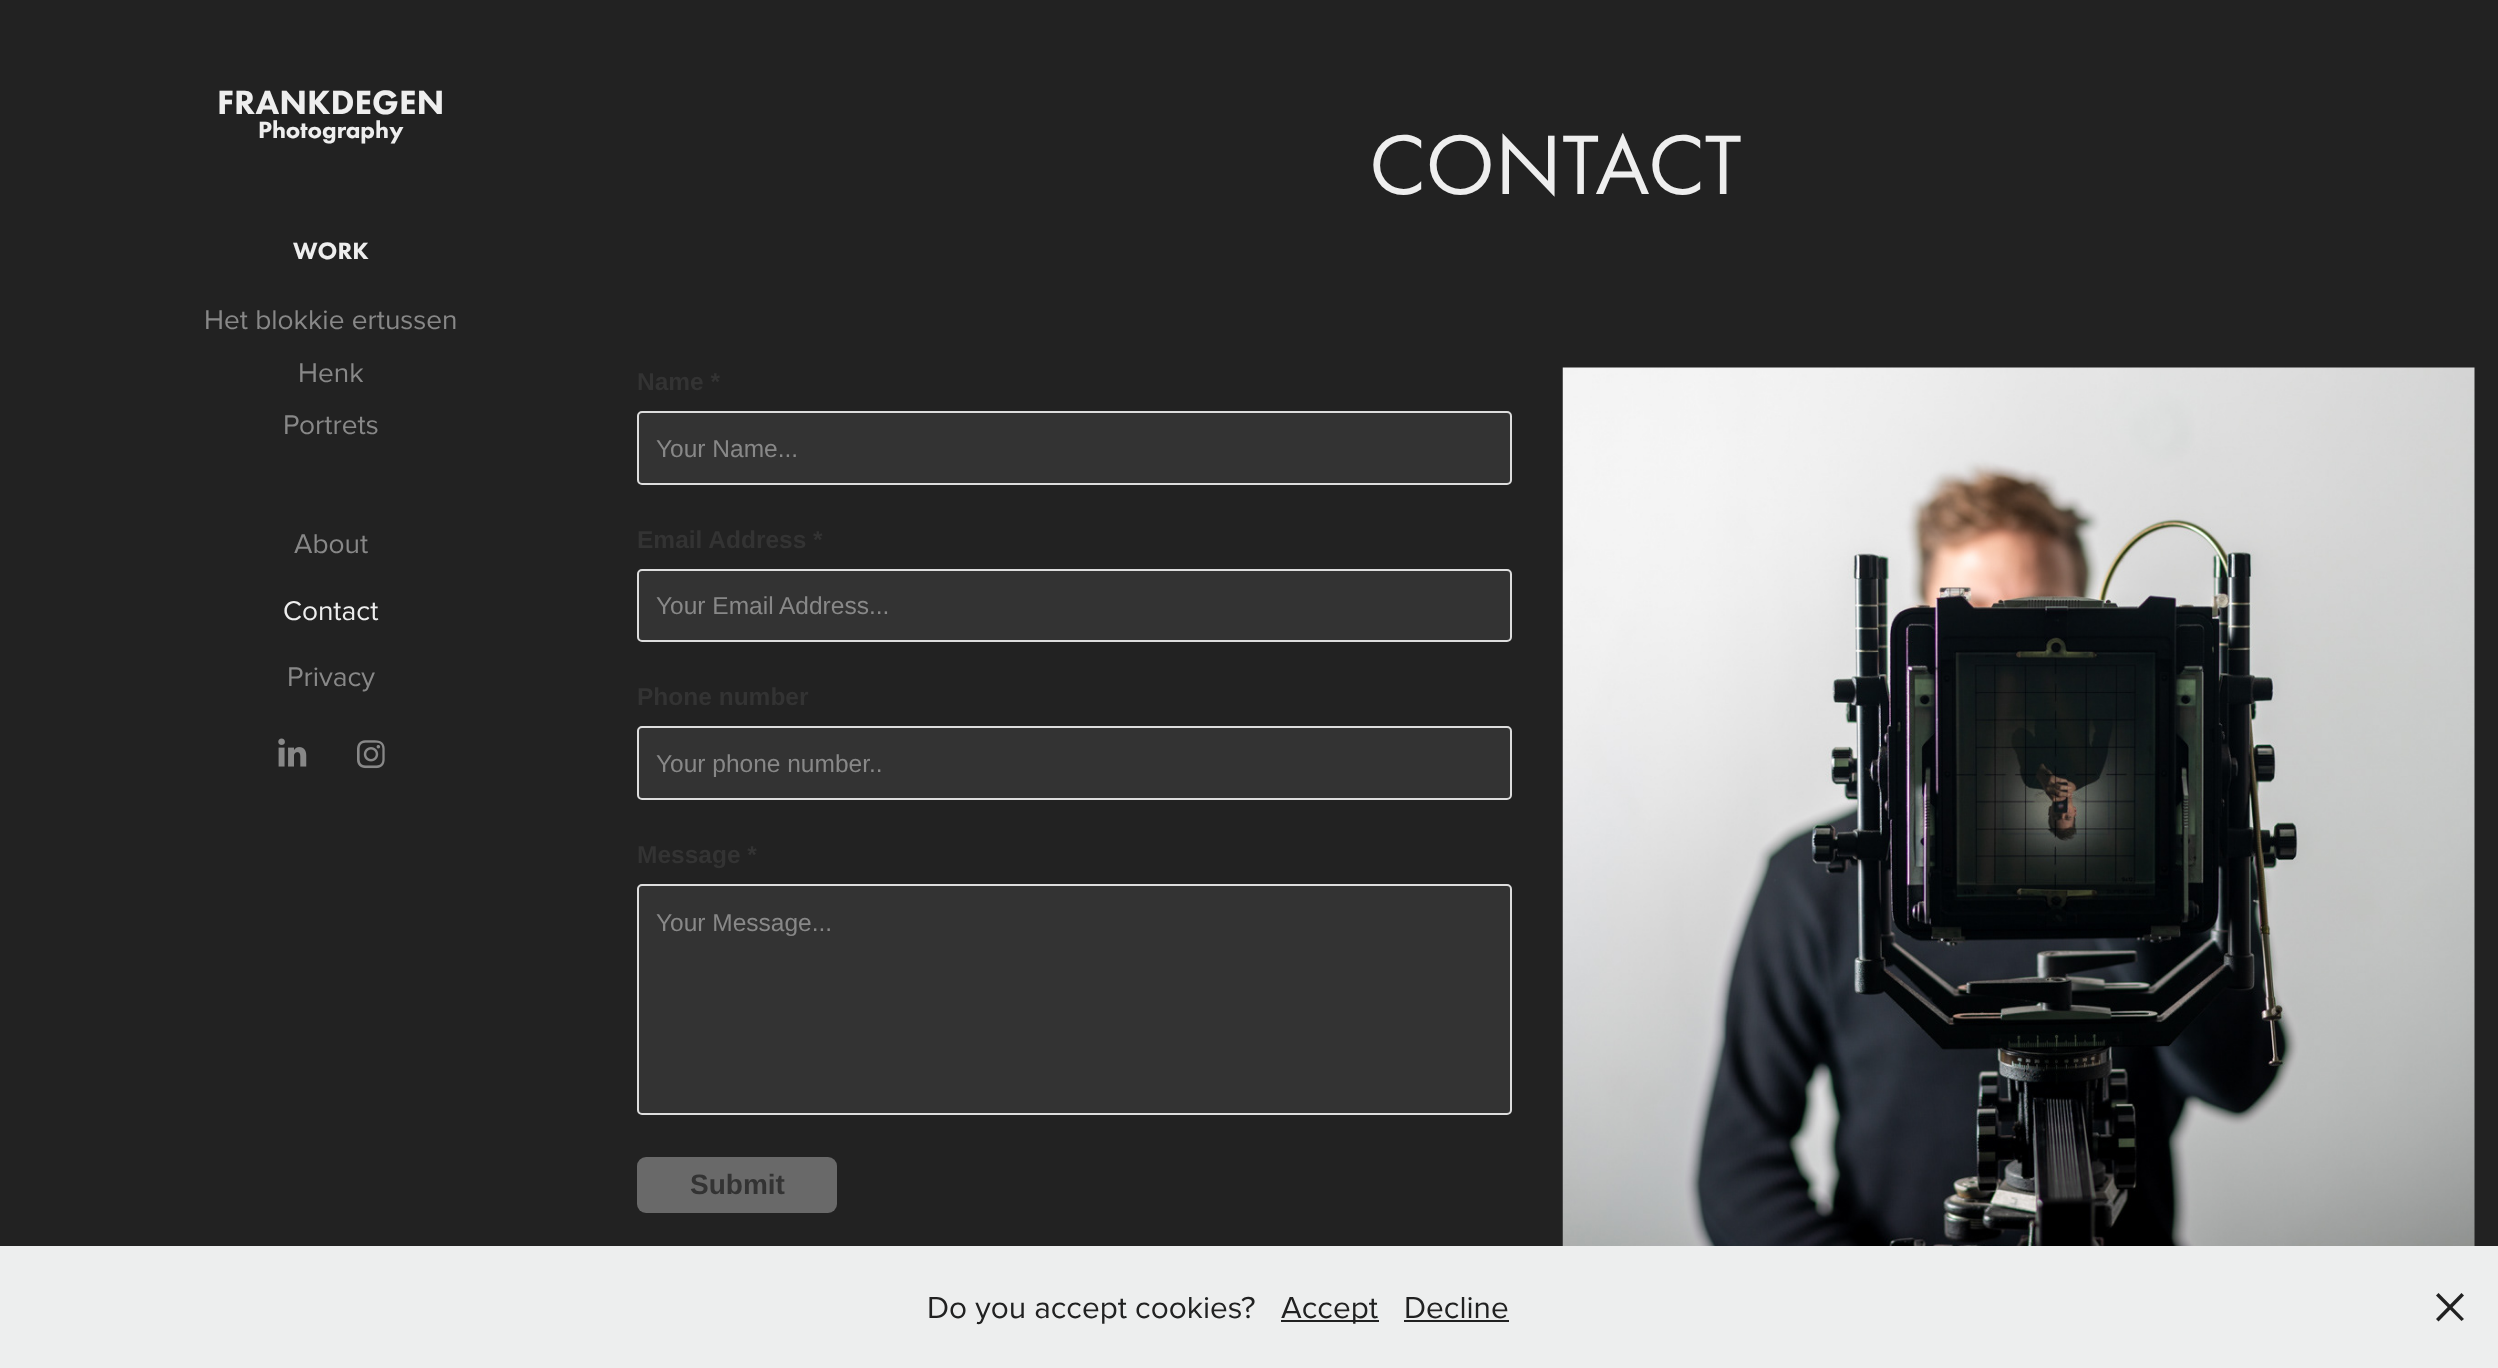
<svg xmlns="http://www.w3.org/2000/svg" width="2498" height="1368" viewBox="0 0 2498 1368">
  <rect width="100%" height="100%" fill="rgb(34,34,34)"/>
  <text x="217" y="114" font-family="Futura PT" font-size="35" font-weight="900" fill="rgb(238,238,238)">FRANKDEGEN</text>
  <g font-family="Futura PT" font-size="24.5" font-weight="900" fill="rgb(238,238,238)">
    <text x="258" y="138">Photography</text>
    <text x="293" y="259">WORK</text>
  </g>
  <g font-family="Proxima Nova" font-size="28" fill="rgb(136,136,136)">
    <text x="204" y="329">Het blokkie ertussen</text>
    <text x="298" y="382">Henk</text>
    <text x="283" y="434">Portrets</text>
    <text x="294" y="553">About</text>
  </g>
  <text x="283" y="620" font-family="Proxima Nova" font-size="28" fill="rgb(238,238,238)">Contact</text>
  <text x="287" y="686" font-family="Proxima Nova" font-size="28" fill="rgb(136,136,136)">Privacy</text>
  <image x="278" y="738" width="29" height="29" href="pic1.png"/>
  <image x="357" y="740" width="28" height="29" href="pic2.png"/>
  <text x="1369" y="194" font-family="Futura PT" font-size="87.5" fill="rgb(238,238,238)">CONTACT</text>
  <text x="637" y="390" font-family="Liberation Sans" font-size="24.5" font-weight="bold" fill="rgb(51,51,51)">Name *</text>
  <rect x="638" y="412" width="873" height="72" rx="4" fill="rgb(51,51,51)" stroke="rgb(221,221,221)" stroke-width="2"/>
  <text x="656" y="457" font-family="Liberation Sans" font-size="24.5" fill="rgb(136,136,136)">Your Name...</text>
  <text x="637" y="548" font-family="Liberation Sans" font-size="24.5" font-weight="bold" fill="rgb(51,51,51)">Email Address *</text>
  <rect x="638" y="570" width="873" height="71" rx="4" fill="rgb(51,51,51)" stroke="rgb(221,221,221)" stroke-width="2"/>
  <text x="656" y="614" font-family="Liberation Sans" font-size="24.5" fill="rgb(136,136,136)">Your Email Address...</text>
  <text x="637" y="705" font-family="Liberation Sans" font-size="24.5" font-weight="bold" fill="rgb(51,51,51)">Phone number</text>
  <rect x="638" y="727" width="873" height="72" rx="4" fill="rgb(51,51,51)" stroke="rgb(221,221,221)" stroke-width="2"/>
  <text x="656" y="772" font-family="Liberation Sans" font-size="24.5" fill="rgb(136,136,136)">Your phone number..</text>
  <text x="637" y="863" font-family="Liberation Sans" font-size="24.5" font-weight="bold" fill="rgb(51,51,51)">Message *</text>
  <rect x="638" y="885" width="873" height="229" rx="4" fill="rgb(51,51,51)" stroke="rgb(221,221,221)" stroke-width="2"/>
  <text x="656" y="931" font-family="Liberation Sans" font-size="24.5" fill="rgb(136,136,136)">Your Message...</text>
  <rect x="637" y="1157" width="200" height="56" rx="9" fill="rgb(105,105,105)"/>
  <text x="690" y="1194" font-family="Liberation Sans" font-size="28" font-weight="bold" fill="rgb(51,51,51)">Submit</text>
  <image x="1562" y="367" width="913" height="879" href="pic3.png"/>
  <rect x="0" y="1246" width="2498" height="122" fill="rgb(237,238,238)"/>
  <text x="927" y="1318" font-family="Proxima Nova" font-size="31.5" fill="rgb(33,33,33)">Do you accept cookies?</text>
  <rect x="1281" y="1320" width="98" height="2" fill="rgb(33,33,33)"/>
  <g font-family="Proxima Nova" font-size="31.5" fill="rgb(33,33,33)">
    <text x="1281" y="1318">Accept</text>
    <text x="1404" y="1318">Decline</text>
  </g>
  <rect x="1404" y="1320" width="105" height="2" fill="rgb(33,33,33)"/>
  <path d="M2436 1295.5L2438.5 1293L2464 1319L2461.5 1321Z" fill="rgb(33,33,33)"/>
  <path d="M2438.5 1321.5L2436 1319L2461.5 1293L2464 1295.5Z" fill="rgb(33,33,33)"/>
</svg>
